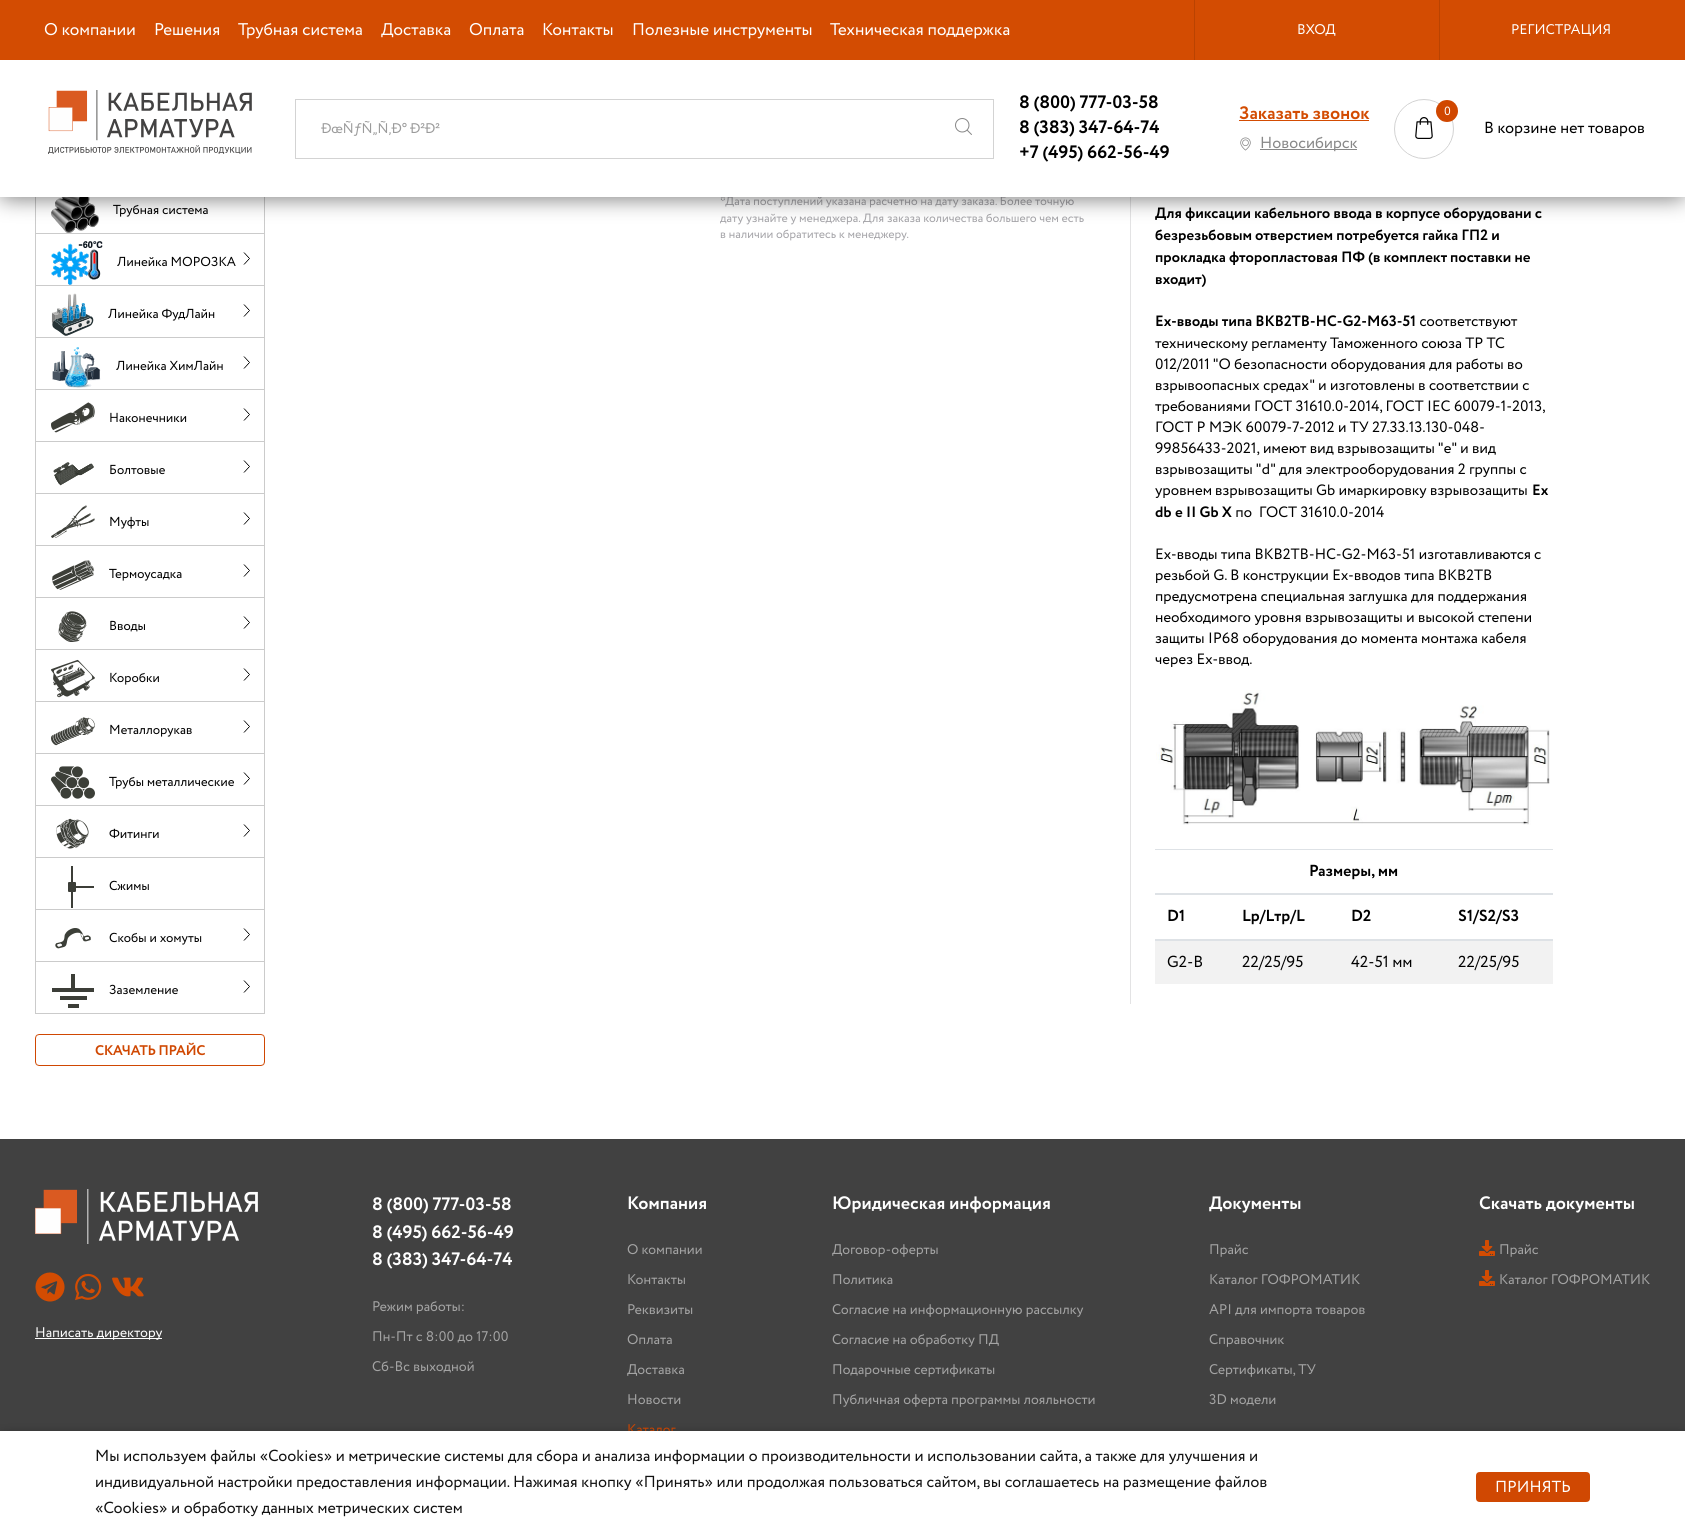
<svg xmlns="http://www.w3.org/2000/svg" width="1685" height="1533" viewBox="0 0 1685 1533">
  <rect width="100%" height="100%" fill="rgb(255,255,255)"/>
  <rect x="35.5" y="181.5" width="229" height="52" fill="none" stroke="rgb(203,203,203)"/>
  <image x="51" y="197" width="48" height="36" href="pic23.png"/>
  <image x="113" y="204" width="95" height="13" href="pic24.png"/>
  <image x="720" y="197" width="354" height="11" href="pic54.png"/>
  <image x="720" y="213" width="164" height="12" href="pic55.png"/>
  <image x="887" y="213" width="197" height="10" href="pic56.png"/>
  <image x="720" y="229" width="189" height="12" href="pic57.png"/>
  <rect x="1130" y="197" width="1" height="807" fill="rgb(227,227,228)"/>
  <image x="1155" y="207" width="387" height="14" href="pic58.png"/>
  <image x="1155" y="229" width="97" height="14" href="pic59.png"/>
  <image x="1255" y="229" width="244" height="14" href="pic60.png"/>
  <rect x="0" y="2" width="1685" height="197" fill="rgba(0,0,0,0.5)" filter="blur(10.5px)"/>
  <rect x="0" y="60" width="1685" height="137" fill="rgb(255,255,255)"/>
  <rect x="0" y="0" width="1685" height="60" fill="rgb(211,76,2)"/>
  <image x="44" y="22" width="91" height="14" href="pic1.png"/>
  <image x="155" y="23" width="65" height="13" href="pic2.png"/>
  <image x="238" y="23" width="124" height="16" href="pic3.png"/>
  <image x="381" y="23" width="70" height="15" href="pic4.png"/>
  <image x="469" y="22" width="55" height="14" href="pic5.png"/>
  <image x="543" y="23" width="70" height="13" href="pic6.png"/>
  <image x="633" y="23" width="179" height="16" href="pic7.png"/>
  <image x="830" y="23" width="180" height="16" href="pic8.png"/>
  <rect x="1194" y="0" width="1" height="60" fill="rgb(186,67,1)"/>
  <image x="1298" y="24" width="38" height="12" href="pic9.png"/>
  <rect x="1439" y="0" width="1" height="60" fill="rgb(186,67,1)"/>
  <image x="1512" y="24" width="98" height="12" href="pic10.png"/>
  <image x="48" y="90" width="204" height="64" href="pic11.png"/>
  <rect x="295.5" y="99.5" width="698" height="59" fill="none" stroke="rgb(211,211,211)"/>
  <image x="321" y="121" width="119" height="15" href="pic12.png"/>
  <image x="955" y="118" width="17" height="17" href="pic13.png"/>
  <image x="1020" y="95" width="138" height="17" href="pic14.png"/>
  <image x="1020" y="120" width="139" height="17" href="pic15.png"/>
  <image x="1020" y="145" width="149" height="17" href="pic16.png"/>
  <image x="1239" y="106" width="131" height="14" href="pic17.png"/>
  <rect x="1239" y="120" width="130" height="1" fill="rgb(211,76,2)"/>
  <image x="1240" y="137" width="11" height="14" href="pic18.png"/>
  <rect x="1260" y="149" width="97" height="1" fill="rgb(136,136,136)"/>
  <image x="1261" y="136" width="97" height="16" href="pic19.png"/>
  <circle cx="1424" cy="129" r="29.5" fill="none" stroke="rgb(211,211,211)"/>
  <circle cx="1447" cy="111" r="11" fill="rgb(208,71,0)"/>
  <image x="1444" y="106" width="7" height="10" href="pic20.png"/>
  <image x="1415" y="117" width="18" height="22" href="pic21.png"/>
  <image x="1485" y="121" width="159" height="16" href="pic22.png"/>
  <rect x="35.5" y="233.5" width="229" height="52" fill="none" stroke="rgb(203,203,203)"/>
  <image x="51" y="241" width="52" height="44" href="pic25.png"/>
  <image x="117" y="256" width="119" height="11" href="pic26.png"/>
  <path d="M244 252.5L249.5 258.5L244 264.5" fill="none" stroke="rgb(0,0,0)"/>
  <rect x="35.5" y="285.5" width="229" height="52" fill="none" stroke="rgb(203,203,203)"/>
  <image x="51" y="293" width="43" height="43" href="pic27.png"/>
  <image x="108" y="308" width="107" height="13" href="pic28.png"/>
  <path d="M244 304.5L249.5 310.5L244 316.5" fill="none" stroke="rgb(0,0,0)"/>
  <rect x="35.5" y="337.5" width="229" height="52" fill="none" stroke="rgb(203,203,203)"/>
  <image x="52" y="347" width="49" height="41" href="pic29.png"/>
  <image x="116" y="360" width="107" height="11" href="pic30.png"/>
  <path d="M244 356.5L249.5 362.5L244 368.5" fill="none" stroke="rgb(0,0,0)"/>
  <rect x="35.5" y="389.5" width="229" height="52" fill="none" stroke="rgb(203,203,203)"/>
  <image x="51" y="402" width="44" height="31" href="pic31.png"/>
  <image x="110" y="412" width="77" height="11" href="pic32.png"/>
  <path d="M244 408.5L249.5 414.5L244 420.5" fill="none" stroke="rgb(0,0,0)"/>
  <rect x="35.5" y="441.5" width="229" height="52" fill="none" stroke="rgb(203,203,203)"/>
  <image x="53" y="462" width="41" height="24" href="pic33.png"/>
  <image x="110" y="464" width="55" height="11" href="pic34.png"/>
  <path d="M244 460.5L249.5 466.5L244 472.5" fill="none" stroke="rgb(0,0,0)"/>
  <rect x="35.5" y="493.5" width="229" height="52" fill="none" stroke="rgb(203,203,203)"/>
  <image x="51" y="505" width="44" height="33" href="pic35.png"/>
  <image x="110" y="516" width="39" height="13" href="pic36.png"/>
  <path d="M244 512.5L249.5 518.5L244 524.5" fill="none" stroke="rgb(0,0,0)"/>
  <rect x="35.5" y="545.5" width="229" height="52" fill="none" stroke="rgb(203,203,203)"/>
  <image x="52" y="560" width="43" height="30" href="pic37.png"/>
  <image x="109" y="568" width="73" height="13" href="pic38.png"/>
  <path d="M244 564.5L249.5 570.5L244 576.5" fill="none" stroke="rgb(0,0,0)"/>
  <rect x="35.5" y="597.5" width="229" height="52" fill="none" stroke="rgb(203,203,203)"/>
  <image x="58" y="611" width="29" height="31" href="pic39.png"/>
  <image x="110" y="620" width="35" height="12" href="pic40.png"/>
  <path d="M244 616.5L249.5 622.5L244 628.5" fill="none" stroke="rgb(0,0,0)"/>
  <rect x="35.5" y="649.5" width="229" height="52" fill="none" stroke="rgb(203,203,203)"/>
  <image x="51" y="659" width="44" height="39" href="pic41.png"/>
  <image x="110" y="672" width="49" height="13" href="pic42.png"/>
  <path d="M244 668.5L249.5 674.5L244 680.5" fill="none" stroke="rgb(0,0,0)"/>
  <rect x="35.5" y="701.5" width="229" height="52" fill="none" stroke="rgb(203,203,203)"/>
  <image x="51" y="717" width="44" height="29" href="pic43.png"/>
  <image x="110" y="724" width="82" height="13" href="pic44.png"/>
  <path d="M244 720.5L249.5 726.5L244 732.5" fill="none" stroke="rgb(0,0,0)"/>
  <rect x="35.5" y="753.5" width="229" height="52" fill="none" stroke="rgb(203,203,203)"/>
  <image x="51" y="766" width="44" height="33" href="pic45.png"/>
  <image x="109" y="776" width="125" height="13" href="pic46.png"/>
  <path d="M244 772.5L249.5 778.5L244 784.5" fill="none" stroke="rgb(0,0,0)"/>
  <rect x="35.5" y="805.5" width="229" height="52" fill="none" stroke="rgb(203,203,203)"/>
  <image x="56" y="818" width="33" height="31" href="pic47.png"/>
  <image x="109" y="828" width="50" height="11" href="pic48.png"/>
  <path d="M244 824.5L249.5 830.5L244 836.5" fill="none" stroke="rgb(0,0,0)"/>
  <rect x="35.5" y="857.5" width="229" height="52" fill="none" stroke="rgb(203,203,203)"/>
  <rect x="68" y="882" width="8" height="10" rx="1" fill="rgb(60,62,56)"/>
  <rect x="71" y="866" width="2" height="42" fill="rgb(60,62,56)"/>
  <rect x="73" y="886" width="21" height="2" fill="rgb(60,62,56)"/>
  <image x="109" y="880" width="40" height="11" href="pic49.png"/>
  <rect x="35.5" y="909.5" width="229" height="52" fill="none" stroke="rgb(203,203,203)"/>
  <image x="55" y="928" width="36" height="21" href="pic50.png"/>
  <image x="109" y="932" width="93" height="13" href="pic51.png"/>
  <path d="M244 928.5L249.5 934.5L244 940.5" fill="none" stroke="rgb(0,0,0)"/>
  <rect x="35.5" y="961.5" width="229" height="52" fill="none" stroke="rgb(203,203,203)"/>
  <rect x="71" y="974" width="4" height="14" fill="rgb(60,62,56)"/>
  <rect x="52" y="988" width="42" height="4" fill="rgb(60,62,56)"/>
  <rect x="60" y="996" width="27" height="4" fill="rgb(60,62,56)"/>
  <rect x="68" y="1004" width="11" height="4" fill="rgb(60,62,56)"/>
  <image x="109" y="984" width="69" height="11" href="pic52.png"/>
  <path d="M244 980.5L249.5 986.5L244 992.5" fill="none" stroke="rgb(0,0,0)"/>
  <rect x="35.5" y="1034.5" width="229" height="31" rx="3.5" fill="none" stroke="rgb(208,72,2)"/>
  <image x="95" y="1042" width="110" height="14" href="pic53.png"/>
  <image x="1155" y="251" width="292" height="14" href="pic61.png"/>
  <image x="1450" y="255" width="80" height="8" href="pic62.png"/>
  <image x="1155" y="274" width="51" height="13" href="pic63.png"/>
  <image x="1156" y="315" width="259" height="13" href="pic64.png"/>
  <image x="1420" y="319" width="98" height="10" href="pic65.png"/>
  <image x="1155" y="341" width="172" height="10" href="pic66.png"/>
  <image x="1330" y="337" width="175" height="12" href="pic67.png"/>
  <image x="1155" y="358" width="348" height="15" href="pic68.png"/>
  <image x="1508" y="362" width="15" height="8" href="pic69.png"/>
  <image x="1156" y="379" width="373" height="14" href="pic70.png"/>
  <image x="1155" y="400" width="95" height="14" href="pic71.png"/>
  <image x="1255" y="400" width="195" height="14" href="pic72.png"/>
  <image x="1454" y="400" width="91" height="14" href="pic73.png"/>
  <image x="1156" y="421" width="328" height="12" href="pic74.png"/>
  <image x="1155" y="442" width="105" height="14" href="pic75.png"/>
  <image x="1264" y="442" width="232" height="14" href="pic76.png"/>
  <image x="1156" y="463" width="371" height="14" href="pic77.png"/>
  <image x="1155" y="488" width="56" height="10" href="pic78.png"/>
  <image x="1216" y="484" width="311" height="14" href="pic79.png"/>
  <image x="1533" y="484" width="16" height="11" href="pic80.png"/>
  <image x="1155" y="506" width="16" height="12" href="pic81.png"/>
  <image x="1175" y="506" width="57" height="12" href="pic82.png"/>
  <image x="1236" y="506" width="148" height="12" href="pic83.png"/>
  <image x="1156" y="548" width="374" height="13" href="pic84.png"/>
  <image x="1534" y="552" width="7" height="8" href="pic85.png"/>
  <image x="1156" y="569" width="336" height="14" href="pic86.png"/>
  <image x="1156" y="594" width="370" height="10" href="pic87.png"/>
  <image x="1156" y="611" width="145" height="14" href="pic88.png"/>
  <image x="1306" y="611" width="225" height="14" href="pic89.png"/>
  <image x="1155" y="632" width="262" height="14" href="pic90.png"/>
  <image x="1422" y="632" width="104" height="12" href="pic91.png"/>
  <image x="1155" y="653" width="97" height="14" href="pic92.png"/>
  <image x="1156" y="690" width="394" height="135" href="pic93.png"/>
  <rect x="1155" y="849" width="398" height="1" fill="rgb(222,226,230)"/>
  <rect x="1155" y="893" width="398" height="2" fill="rgb(222,226,230)"/>
  <image x="1310" y="864" width="88" height="16" href="pic94.png"/>
  <rect x="1155" y="939" width="398" height="2" fill="rgb(222,226,230)"/>
  <image x="1458" y="909" width="61" height="16" href="pic95.png"/>
  <image x="1168" y="909" width="16" height="12" href="pic96.png"/>
  <image x="1243" y="909" width="62" height="16" href="pic97.png"/>
  <image x="1352" y="909" width="19" height="12" href="pic98.png"/>
  <rect x="1155" y="941" width="398" height="43" fill="rgb(242,242,242)"/>
  <image x="1167" y="955" width="35" height="13" href="pic99.png"/>
  <image x="1242" y="955" width="61" height="16" href="pic100.png"/>
  <image x="1351" y="955" width="61" height="13" href="pic101.png"/>
  <image x="1458" y="955" width="61" height="16" href="pic100.png"/>
  <rect x="0" y="1139" width="1685" height="292" fill="rgb(65,65,65)"/>
  <image x="35" y="1189" width="223" height="55" href="pic102.png"/>
  <image x="35" y="1272" width="30" height="30" href="pic103.png"/>
  <image x="75" y="1273" width="27" height="28" href="pic104.png"/>
  <image x="112" y="1277" width="32" height="20" href="pic105.png"/>
  <rect x="35" y="1338" width="127" height="1" fill="rgb(255,255,255)"/>
  <image x="36" y="1327" width="127" height="13" href="pic106.png"/>
  <image x="373" y="1197" width="138" height="17" href="pic107.png"/>
  <image x="373" y="1225" width="140" height="17" href="pic108.png"/>
  <image x="373" y="1252" width="139" height="17" href="pic109.png"/>
  <image x="373" y="1301" width="91" height="13" href="pic110.png"/>
  <image x="373" y="1331" width="135" height="12" href="pic111.png"/>
  <image x="372" y="1361" width="102" height="12" href="pic112.png"/>
  <image x="628" y="1196" width="78" height="14" href="pic113.png"/>
  <image x="627" y="1244" width="75" height="11" href="pic114.png"/>
  <image x="628" y="1274" width="57" height="11" href="pic115.png"/>
  <image x="628" y="1304" width="65" height="11" href="pic116.png"/>
  <image x="627" y="1334" width="45" height="11" href="pic117.png"/>
  <image x="627" y="1364" width="57" height="12" href="pic118.png"/>
  <image x="628" y="1394" width="53" height="11" href="pic119.png"/>
  <image x="628" y="1424" width="48" height="7" href="pic120.png"/>
  <image x="833" y="1196" width="217" height="17" href="pic121.png"/>
  <image x="832" y="1244" width="106" height="13" href="pic122.png"/>
  <image x="833" y="1274" width="60" height="11" href="pic123.png"/>
  <image x="832" y="1304" width="252" height="13" href="pic124.png"/>
  <image x="832" y="1334" width="167" height="13" href="pic125.png"/>
  <image x="833" y="1364" width="162" height="13" href="pic126.png"/>
  <image x="833" y="1394" width="262" height="13" href="pic127.png"/>
  <image x="1209" y="1196" width="92" height="17" href="pic128.png"/>
  <image x="1210" y="1244" width="38" height="13" href="pic129.png"/>
  <image x="1210" y="1274" width="150" height="11" href="pic130.png"/>
  <image x="1209" y="1304" width="156" height="13" href="pic131.png"/>
  <image x="1209" y="1334" width="75" height="13" href="pic132.png"/>
  <image x="1209" y="1364" width="107" height="13" href="pic133.png"/>
  <image x="1209" y="1394" width="67" height="12" href="pic134.png"/>
  <image x="1479" y="1196" width="155" height="17" href="pic135.png"/>
  <image x="1479" y="1240" width="16" height="16" href="pic136.png"/>
  <image x="1500" y="1244" width="38" height="13" href="pic129.png"/>
  <image x="1479" y="1270" width="16" height="16" href="pic136.png"/>
  <image x="1500" y="1274" width="150" height="11" href="pic130.png"/>
  <rect x="2" y="1434" width="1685" height="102" fill="rgba(0,0,0,0.4)" filter="blur(5px)"/>
  <rect x="0" y="1431" width="1685" height="102" fill="rgb(255,255,255)"/>
  <image x="96" y="1449" width="1161" height="16" href="pic137.png"/>
  <image x="96" y="1475" width="1171" height="16" href="pic138.png"/>
  <image x="95" y="1501" width="367" height="16" href="pic139.png"/>
  <rect x="1476" y="1472" width="114" height="30" rx="4" fill="rgb(208,72,2)"/>
  <image x="1496" y="1480" width="74" height="12" href="pic140.png"/>
</svg>
